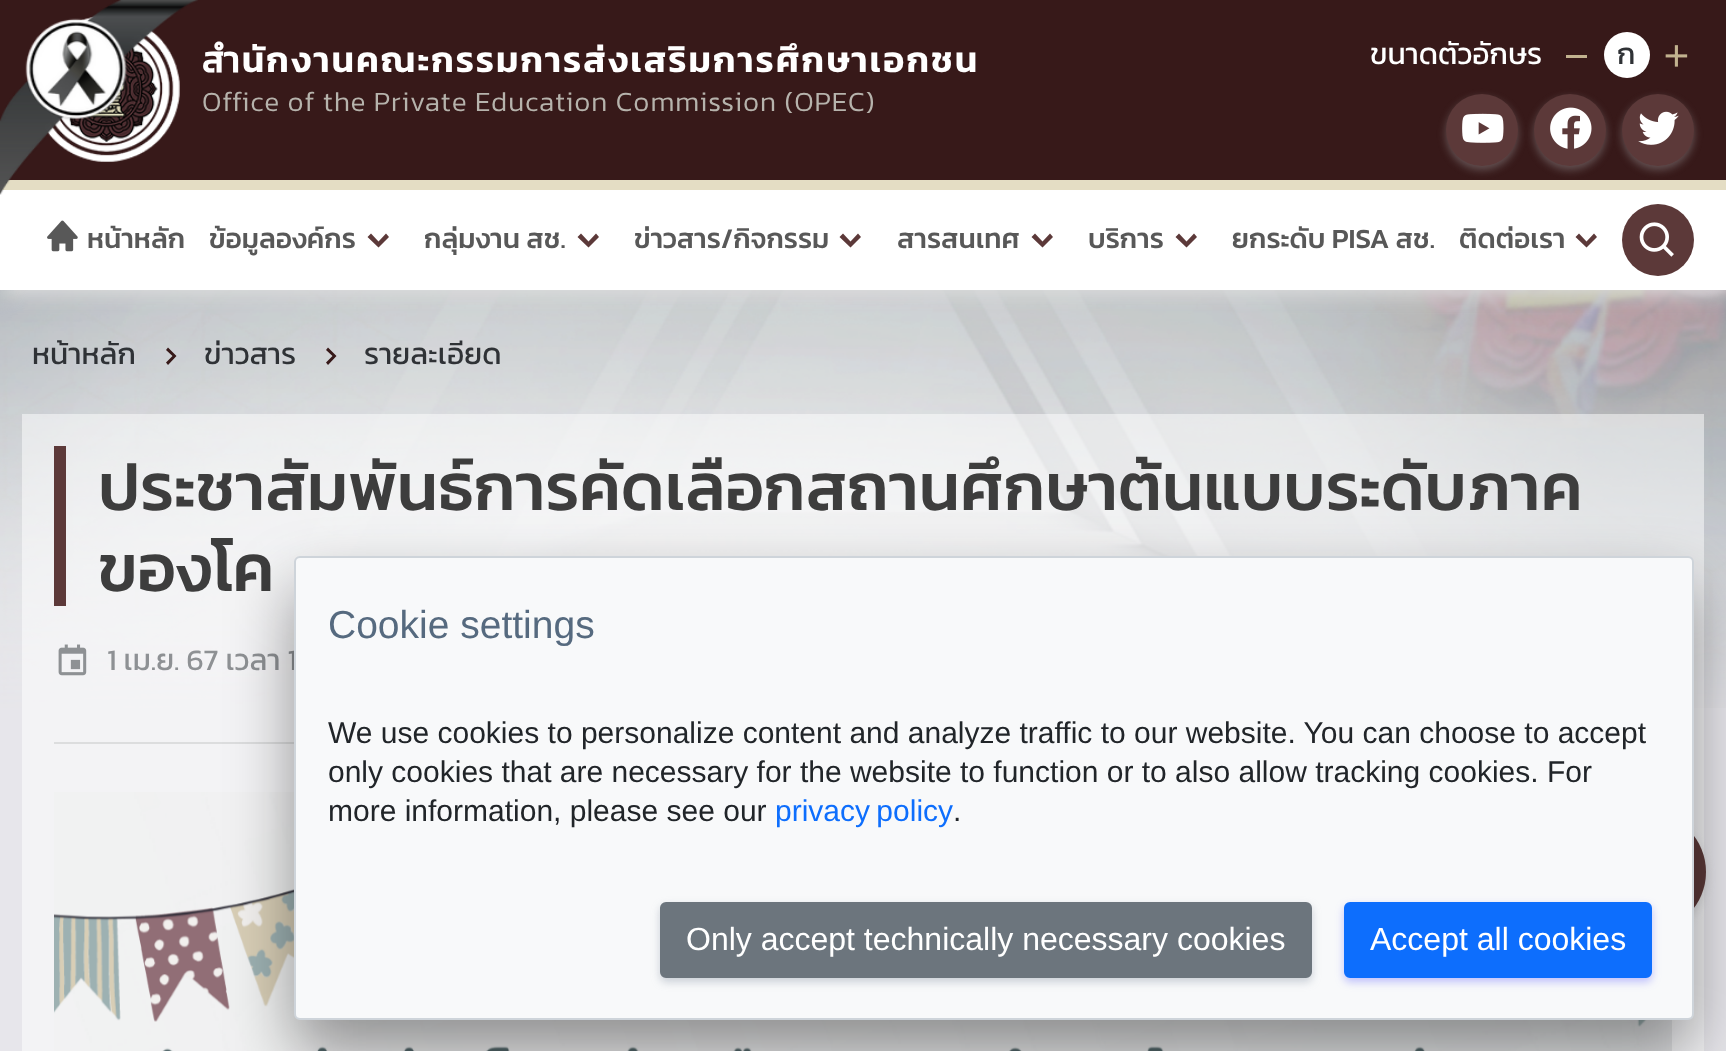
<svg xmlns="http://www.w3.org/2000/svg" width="1726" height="1051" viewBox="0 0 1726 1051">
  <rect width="100%" height="100%" fill="rgb(231,230,235)"/>
  <image x="0" y="290" width="1726" height="418" href="pic1.png"/>
  <rect x="4" y="4" width="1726" height="290" fill="rgb(221,221,221)" filter="blur(10px)"/>
  <rect x="0" y="0" width="1726" height="180" fill="rgb(55,25,25)"/>
  <image x="45" y="16" width="135" height="146" href="pic3.png"/>
  <text x="202" y="72" font-family="Kanit" font-size="36" font-weight="600" letter-spacing="2" fill="rgb(255,255,255)">สำนักงานคณะกรรมการส่งเสริมการศึกษาเอกชน</text>
  <rect x="0" y="190" width="1726" height="100" fill="rgb(255,255,255)"/>
  <rect x="0" y="180" width="1726" height="10" fill="rgb(228,221,196)"/>
  <image x="0" y="0" width="198" height="195" href="pic2.png"/>
  <text x="202" y="111" font-family="Kanit" font-size="28" font-weight="300" letter-spacing="1" fill="rgb(182,179,172)">Office of the Private Education Commission (OPEC)</text>
  <text x="1370" y="64" font-family="Kanit" font-size="30" fill="rgb(255,255,255)">ขนาดตัวอักษร</text>
  <rect x="1566" y="55" width="21" height="3" fill="rgb(194,178,143)"/>
  <circle cx="1627" cy="55" r="23" fill="rgb(255,255,255)"/>
  <text x="1617" y="64" font-family="Kanit" font-size="30" fill="rgb(47,50,54)">ก</text>
  <image x="1665" y="45" width="23" height="22" href="pic4.png"/>
  <rect x="1446" y="98" width="72" height="72" rx="36" fill="rgba(169,171,173,0.4)" filter="blur(4px)"/>
  <circle cx="1482" cy="130" r="36" fill="rgb(92,57,57)"/>
  <image x="1462" y="113" width="42" height="30" href="pic5.png"/>
  <rect x="1534" y="98" width="72" height="72" rx="36" fill="rgba(169,171,173,0.4)" filter="blur(4px)"/>
  <circle cx="1570" cy="130" r="36" fill="rgb(92,57,57)"/>
  <image x="1550" y="107" width="42" height="42" href="pic6.png"/>
  <rect x="1622" y="98" width="72" height="72" rx="36" fill="rgba(169,171,173,0.4)" filter="blur(4px)"/>
  <circle cx="1658" cy="130" r="36" fill="rgb(92,57,57)"/>
  <image x="1638" y="111" width="41" height="34" href="pic7.png"/>
  <image x="47" y="220" width="31" height="32" href="pic8.png"/>
  <g font-family="Kanit" font-size="28" font-weight="500" fill="rgb(88,88,88)">
    <text x="87" y="248">หน้าหลัก</text>
    <text x="209" y="248">ข้อมูลองค์กร</text>
  </g>
  <path d="M386 233.5L378.5 241.5L371 233.5L367.5 237L378.5 247.5L389 237Z" fill="rgb(92,57,57)"/>
  <text x="424" y="248" font-family="Kanit" font-size="28" font-weight="500" fill="rgb(88,88,88)">กลุ่มงาน สช.</text>
  <path d="M596 233.5L588.5 241.5L581 233.5L577.5 237L588.5 247.5L599 237Z" fill="rgb(92,57,57)"/>
  <text x="634" y="248" font-family="Kanit" font-size="28" font-weight="500" fill="rgb(88,88,88)">ข่าวสาร/กิจกรรม</text>
  <path d="M858 233.5L850.5 241.5L843 233.5L839.5 237L850.5 247.5L861 237Z" fill="rgb(92,57,57)"/>
  <text x="897" y="248" font-family="Kanit" font-size="28" font-weight="500" fill="rgb(88,88,88)">สารสนเทศ</text>
  <path d="M1050 233.5L1042.5 241.5L1035 233.5L1031.5 237L1042.5 247.5L1053 237Z" fill="rgb(92,57,57)"/>
  <text x="1088" y="248" font-family="Kanit" font-size="28" font-weight="500" fill="rgb(88,88,88)">บริการ</text>
  <path d="M1194 233.5L1186.5 241.5L1179 233.5L1175.5 237L1186.5 247.5L1197 237Z" fill="rgb(92,57,57)"/>
  <g font-family="Kanit" font-size="28" font-weight="500" fill="rgb(88,88,88)">
    <text x="1232" y="248">ยกระดับ PISA สช.</text>
    <text x="1459" y="248">ติดต่อเรา</text>
  </g>
  <path d="M1594 233.5L1586.5 241.5L1579 233.5L1575.5 237L1586.5 247.5L1597 237Z" fill="rgb(92,57,57)"/>
  <circle cx="1658" cy="240" r="36" fill="rgb(92,57,57)"/>
  <image x="1639" y="222" width="35" height="35" href="pic9.png"/>
  <text x="32" y="364" font-family="Kanit" font-size="30" fill="rgb(47,50,54)">หน้าหลัก</text>
  <path d="M168 365L176.5 356L168 347.5L166 350L172.5 356L166 362.5Z" fill="rgb(55,25,25)"/>
  <text x="204" y="364" font-family="Kanit" font-size="30" fill="rgb(47,50,54)">ข่าวสาร</text>
  <path d="M328 365L336.5 356L328 347.5L326 350L332.5 356L326 362.5Z" fill="rgb(55,25,25)"/>
  <text x="364" y="364" font-family="Kanit" font-size="30" fill="rgb(47,50,54)">รายละเอียด</text>
  <rect x="22" y="414" width="1682" height="637" fill="rgba(255,255,255,0.5)"/>
  <rect x="54" y="446" width="12" height="160" fill="rgb(92,57,57)"/>
  <g font-family="Kanit" font-size="66.9" font-weight="500" fill="rgb(61,61,61)">
    <text>
      <tspan x="98" y="510">ประชาสัมพันธ์การคัดเลือกสถานศึกษาต้นแบบระดับภาค</tspan>
      <tspan x="98" y="591">ของโค</tspan>
    </text>
  </g>
  <image x="58" y="644" width="29" height="32" href="pic10.png"/>
  <text x="107" y="670" font-family="Kanit" font-size="30" fill="rgb(142,145,148)">1 เม.ย. 67 เวลา 1</text>
  <rect x="54" y="742" width="240" height="2" fill="rgb(220,221,222)"/>
  <image x="54" y="792" width="1618" height="259" href="pic11.png"/>
  <rect x="1586" y="816" width="120" height="120" rx="60" fill="rgba(169,171,173,0.4)" filter="blur(4px)"/>
  <circle cx="1646" cy="872" r="60" fill="rgb(92,57,57)"/>
  <rect x="294" y="588" width="1400" height="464" rx="6" fill="rgba(0,0,0,0.4)" filter="blur(32px)"/>
  <rect x="295" y="557" width="1398" height="462" rx="5" fill="rgb(248,249,250)" stroke="rgb(206,212,218)" stroke-width="2"/>
  <text x="328" y="638" font-family="Liberation Sans" font-size="39" fill="rgb(86,106,127)">Cookie settings</text>
  <g font-family="Liberation Sans" font-size="30" fill="rgb(33,37,41)">
    <text>
      <tspan x="328" y="743">We use cookies to personalize content and analyze traffic to our website. You can choose to accept</tspan>
      <tspan x="328" y="782">only cookies that are necessary for the website to function or to also allow tracking cookies. For</tspan>
      <tspan x="328" y="821">more information, please see our</tspan>
    </text>
  </g>
  <text x="775" y="821" word-spacing="-2" font-family="Liberation Sans" font-size="30" fill="rgb(13,110,253)">privacy policy</text>
  <text x="953" y="821" font-family="Liberation Sans" font-size="30" fill="rgb(33,37,41)">.</text>
  <rect x="660" y="906" width="652" height="76" rx="6" fill="rgba(133,146,163,0.4)" filter="blur(4px)"/>
  <rect x="661" y="903" width="650" height="74" rx="5" fill="rgb(108,117,125)" stroke="rgb(108,117,125)" stroke-width="2"/>
  <text x="686" y="950" font-family="Liberation Sans" font-size="32" fill="rgb(255,255,255)">Only accept technically necessary cookies</text>
  <rect x="1344" y="906" width="308" height="76" rx="6" fill="rgba(105,108,255,0.4)" filter="blur(4px)"/>
  <rect x="1345" y="903" width="306" height="74" rx="5" fill="rgb(13,110,253)" stroke="rgb(13,110,253)" stroke-width="2"/>
  <text x="1370" y="950" font-family="Liberation Sans" font-size="32" fill="rgb(255,255,255)">Accept all cookies</text>
</svg>
